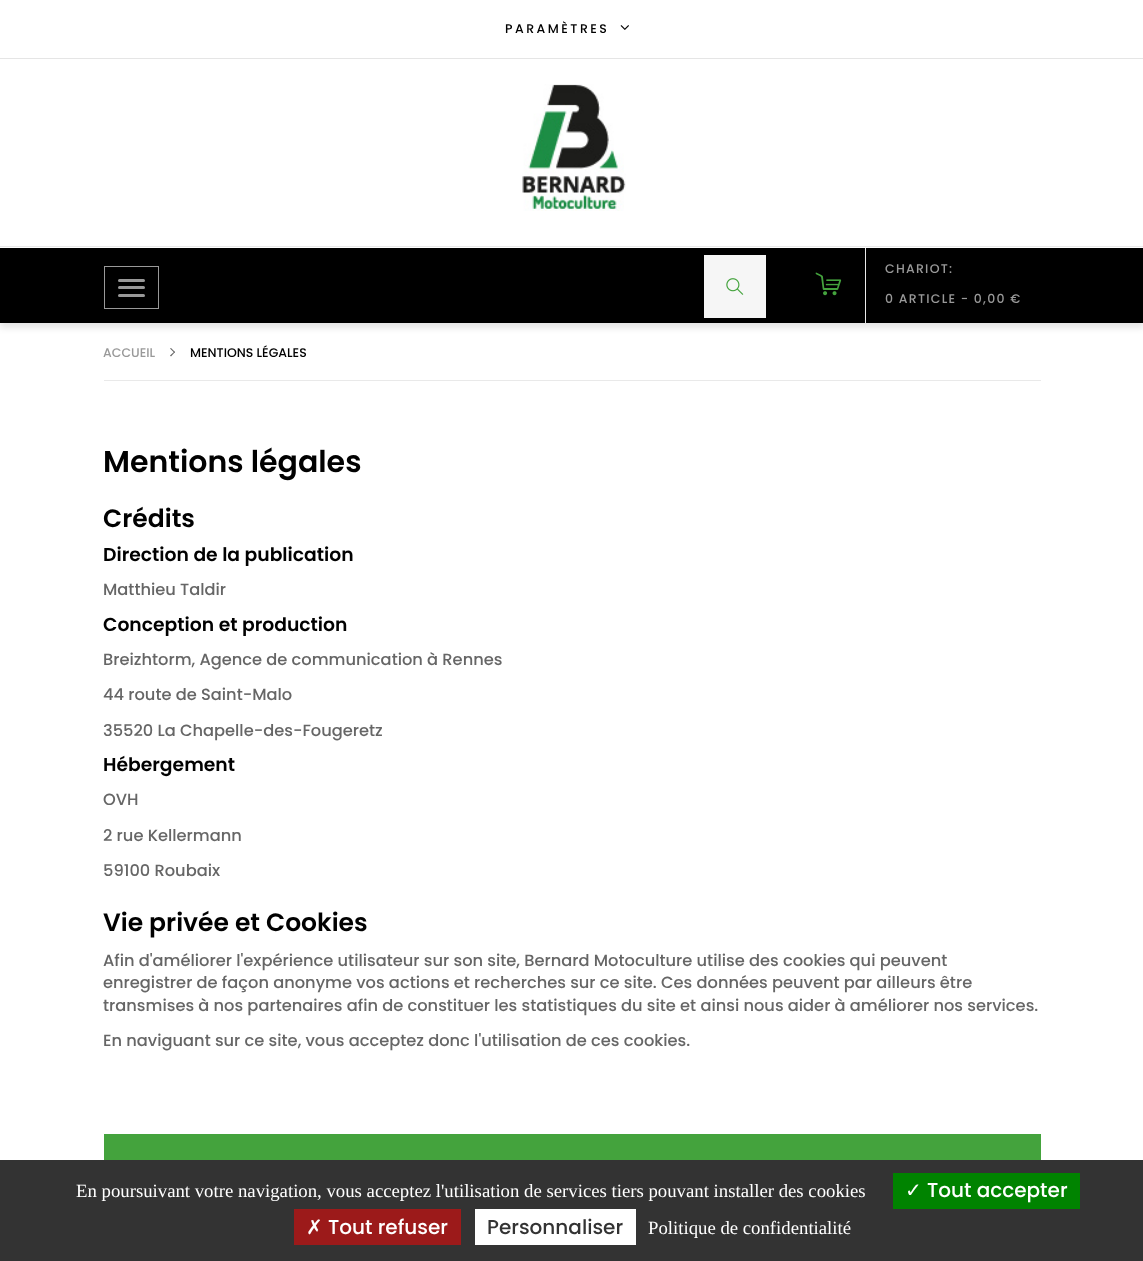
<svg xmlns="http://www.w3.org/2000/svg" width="1143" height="1261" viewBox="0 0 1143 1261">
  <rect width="100%" height="100%" fill="rgb(255,255,255)"/>
  <rect x="0" y="58" width="1143" height="1" fill="rgb(229,229,229)"/>
  <text x="505" y="33" font-family="Poppins" font-size="12.5" font-weight="500" letter-spacing="2.5" fill="rgb(1,1,1)">PARAMÈTRES</text>
  <image x="620" y="25" width="9" height="5" href="pic1.png"/>
  <rect x="0" y="246" width="1143" height="1" fill="rgb(233,233,233)"/>
  <image x="522" y="84" width="104" height="127" href="pic2.png"/>
  <rect x="0" y="253" width="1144" height="75" fill="rgba(0,0,0,0.1)" filter="blur(3px)"/>
  <rect x="0" y="248" width="1143" height="75" fill="rgb(0,0,0)"/>
  <rect x="104.5" y="266.5" width="54" height="42" fill="none" stroke="rgb(153,153,153)"/>
  <rect x="118" y="279" width="27" height="3" rx="1.5" fill="rgb(153,153,153)"/>
  <rect x="118" y="286" width="27" height="3" rx="1.5" fill="rgb(153,153,153)"/>
  <rect x="118" y="294" width="27" height="3" rx="1.5" fill="rgb(153,153,153)"/>
  <rect x="704" y="255" width="62" height="63" fill="rgb(246,246,246)"/>
  <image x="726" y="278" width="18" height="17" href="pic3.png"/>
  <rect x="865" y="248" width="1" height="75" fill="rgb(233,233,233)"/>
  <image x="815" y="272" width="27" height="24" href="pic4.png"/>
  <g font-family="Poppins" font-size="12.5" font-weight="500" letter-spacing="1.25" fill="rgb(153,153,153)">
    <text x="885" y="273">CHARIOT:</text>
    <text x="885" y="303">0 ARTICLE - 0,00 €</text>
  </g>
  <rect x="104" y="380" width="937" height="1" fill="rgb(233,233,233)"/>
  <text x="103" y="357" font-family="Poppins" font-size="12.5" font-weight="500" fill="rgb(153,153,153)">ACCUEIL</text>
  <path d="M171 348L175 352L174.5 353L170 348.5Z" fill="rgb(102,102,102)"/>
  <path d="M174.5 351.5L175 352L171 356.5L170 355.5Z" fill="rgb(102,102,102)"/>
  <text x="190" y="357" font-family="Poppins" font-size="12.5" font-weight="500" fill="rgb(1,1,1)">MENTIONS LÉGALES</text>
  <text x="103" y="472" font-family="Poppins" font-size="30" font-weight="600" fill="rgb(1,1,1)">Mentions légales</text>
  <text x="103" y="527" font-family="Poppins" font-size="25" font-weight="600" fill="rgb(1,1,1)">Crédits</text>
  <text x="103" y="561" font-family="Poppins" font-size="18.75" font-weight="600" fill="rgb(1,1,1)">Direction de la publication</text>
  <text x="103" y="595" font-family="Poppins" font-size="16.25" font-weight="500" fill="rgb(102,102,102)">Matthieu Taldir</text>
  <text x="103" y="631" font-family="Poppins" font-size="18.75" font-weight="600" fill="rgb(1,1,1)">Conception et production</text>
  <g font-family="Poppins" font-size="16.25" font-weight="500" fill="rgb(102,102,102)">
    <text x="103" y="665">Breizhtorm, Agence de communication à Rennes</text>
    <text x="103" y="700">44 route de Saint-Malo</text>
    <text x="103" y="736">35520 La Chapelle-des-Fougeretz</text>
  </g>
  <text x="103" y="771" font-family="Poppins" font-size="18.75" font-weight="600" fill="rgb(1,1,1)">Hébergement</text>
  <g font-family="Poppins" font-size="16.25" font-weight="500" fill="rgb(102,102,102)">
    <text x="103" y="805">OVH</text>
    <text x="103" y="841">2 rue Kellermann</text>
    <text x="103" y="876">59100 Roubaix</text>
  </g>
  <text x="103" y="931" font-family="Poppins" font-size="25" font-weight="600" fill="rgb(1,1,1)">Vie privée et Cookies</text>
  <g font-family="Poppins" font-size="16.25" font-weight="500" fill="rgb(102,102,102)">
    <text>
      <tspan x="103" y="966">Afin d'améliorer l'expérience utilisateur sur son site, Bernard Motoculture utilise des cookies qui peuvent</tspan>
      <tspan x="103" y="988">enregistrer de façon anonyme vos actions et recherches sur ce site. Ces données peuvent par ailleurs être</tspan>
      <tspan x="103" y="1011">transmises à nos partenaires afin de constituer les statistiques du site et ainsi nous aider à améliorer nos services.</tspan>
    </text>
    <text x="103" y="1046">En naviguant sur ce site, vous acceptez donc l'utilisation de ces cookies.</text>
  </g>
  <rect x="104" y="1134" width="937" height="26" fill="rgb(68,163,61)"/>
  <rect x="0" y="1160" width="1143" height="101" fill="rgb(51,51,51)"/>
  <text x="76" y="1197" font-family="Liberation Serif" font-size="18.75" fill="rgb(255,255,255)">En poursuivant votre navigation, vous acceptez l'utilisation de services tiers pouvant installer des cookies</text>
  <rect x="893" y="1173" width="187" height="36" fill="rgb(0,131,0)"/>
  <text x="905" y="1197" font-family="DejaVu Sans" font-size="20" fill="rgb(255,255,255)">✓</text>
  <text x="927" y="1197" font-family="Poppins" font-size="20" font-weight="500" fill="rgb(255,255,255)">Tout accepter</text>
  <rect x="294" y="1209" width="167" height="36" fill="rgb(156,26,26)"/>
  <text x="306" y="1234" font-family="DejaVu Sans" font-size="20" fill="rgb(255,255,255)">✗</text>
  <text x="328" y="1234" font-family="Poppins" font-size="20" font-weight="500" fill="rgb(255,255,255)">Tout refuser</text>
  <rect x="475" y="1209" width="161" height="36" fill="rgb(255,255,255)"/>
  <text x="487" y="1234" font-family="Poppins" font-size="20" font-weight="500" fill="rgb(51,51,51)">Personnaliser</text>
  <text x="648" y="1234" font-family="Liberation Serif" font-size="18.75" fill="rgb(255,255,255)">Politique de confidentialité</text>
</svg>
